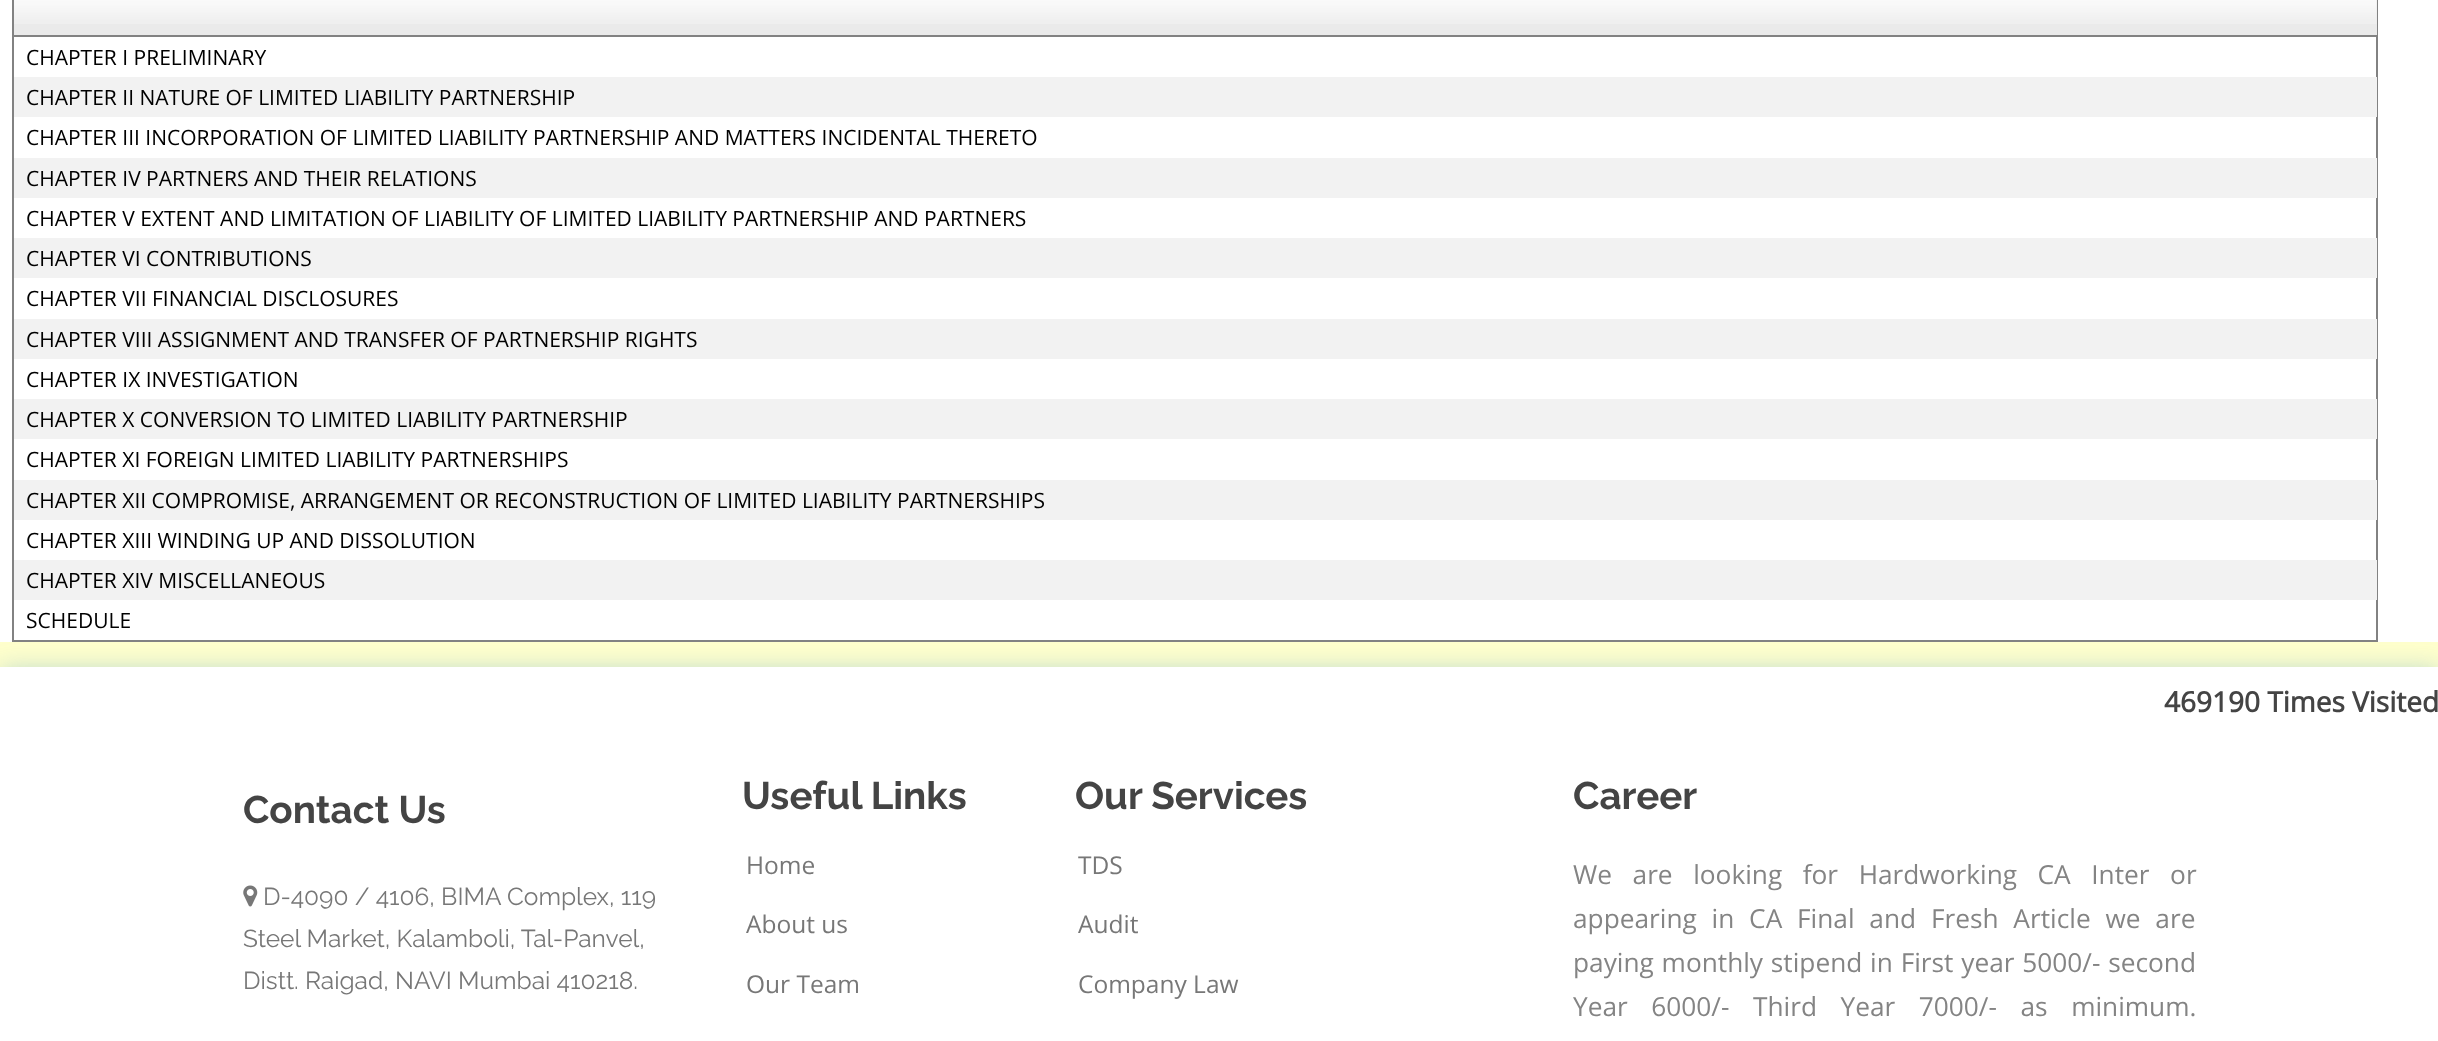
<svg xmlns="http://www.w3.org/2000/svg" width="2438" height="1041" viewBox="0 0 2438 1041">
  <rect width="100%" height="100%" fill="rgb(255,255,204)"/>
  <rect x="0" y="670" width="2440" height="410" fill="rgba(12,119,217,0.3)" filter="blur(13px)"/>
  <rect x="0" y="0" width="2438" height="642" fill="rgb(255,255,255)"/>
  <rect x="13" y="-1" width="2364" height="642" fill="none" stroke="rgb(130,130,130)" stroke-width="2"/>
  <rect x="14" y="0" width="2363" height="35" fill="rgb(234,234,234)"/>
  <image x="14" y="0" width="2363" height="24" href="pic1.png"/>
  <rect x="14" y="35" width="2363" height="2" fill="rgb(130,130,130)"/>
  <text x="26" y="65" font-family="Open Sans" font-size="21" fill="rgb(0,0,0)">CHAPTER I PRELIMINARY</text>
  <rect x="14" y="77" width="2363" height="40" fill="rgb(242,242,242)"/>
  <g font-family="Open Sans" font-size="21" fill="rgb(0,0,0)">
    <text>
      <tspan x="26" y="105">CHAPTER II NATURE OF LIMITED LIABILITY PARTNERSHIP</tspan>
      <tspan x="26" y="145">CHAPTER III INCORPORATION OF LIMITED LIABILITY PARTNERSHIP AND MATTERS INCIDENTAL THERETO</tspan>
    </text>
  </g>
  <rect x="14" y="158" width="2363" height="40" fill="rgb(242,242,242)"/>
  <g font-family="Open Sans" font-size="21" fill="rgb(0,0,0)">
    <text>
      <tspan x="26" y="186">CHAPTER IV PARTNERS AND THEIR RELATIONS</tspan>
      <tspan x="26" y="226">CHAPTER V EXTENT AND LIMITATION OF LIABILITY OF LIMITED LIABILITY PARTNERSHIP AND PARTNERS</tspan>
    </text>
  </g>
  <rect x="14" y="238" width="2363" height="40" fill="rgb(242,242,242)"/>
  <g font-family="Open Sans" font-size="21" fill="rgb(0,0,0)">
    <text>
      <tspan x="26" y="266">CHAPTER VI CONTRIBUTIONS</tspan>
      <tspan x="26" y="306">CHAPTER VII FINANCIAL DISCLOSURES</tspan>
    </text>
  </g>
  <rect x="14" y="319" width="2363" height="40" fill="rgb(242,242,242)"/>
  <g font-family="Open Sans" font-size="21" fill="rgb(0,0,0)">
    <text>
      <tspan x="26" y="347">CHAPTER VIII ASSIGNMENT AND TRANSFER OF PARTNERSHIP RIGHTS</tspan>
      <tspan x="26" y="387">CHAPTER IX INVESTIGATION</tspan>
    </text>
  </g>
  <rect x="14" y="399" width="2363" height="40" fill="rgb(242,242,242)"/>
  <g font-family="Open Sans" font-size="21" fill="rgb(0,0,0)">
    <text>
      <tspan x="26" y="427">CHAPTER X CONVERSION TO LIMITED LIABILITY PARTNERSHIP</tspan>
      <tspan x="26" y="467">CHAPTER XI FOREIGN LIMITED LIABILITY PARTNERSHIPS</tspan>
    </text>
  </g>
  <rect x="14" y="480" width="2363" height="40" fill="rgb(242,242,242)"/>
  <g font-family="Open Sans" font-size="21" fill="rgb(0,0,0)">
    <text>
      <tspan x="26" y="508">CHAPTER XII COMPROMISE, ARRANGEMENT OR RECONSTRUCTION OF LIMITED LIABILITY PARTNERSHIPS</tspan>
      <tspan x="26" y="548">CHAPTER XIII WINDING UP AND DISSOLUTION</tspan>
    </text>
  </g>
  <rect x="14" y="560" width="2363" height="40" fill="rgb(242,242,242)"/>
  <g font-family="Open Sans" font-size="21" fill="rgb(0,0,0)">
    <text>
      <tspan x="26" y="588">CHAPTER XIV MISCELLANEOUS</tspan>
      <tspan x="26" y="628">SCHEDULE</tspan>
    </text>
  </g>
  <rect x="0" y="667" width="2438" height="374" fill="rgb(255,255,255)"/>
  <text x="2164" y="712" font-family="Open Sans" font-size="28" font-weight="bold" fill="rgb(68,68,68)">469190 Times Visited</text>
  <text x="243" y="823" font-family="Raleway" font-size="38.5" font-weight="bold" fill="rgb(68,68,68)">Contact Us</text>
  <image x="243" y="885" width="15" height="22" href="pic2.png"/>
  <g font-family="Raleway" font-size="24.5" fill="rgb(119,119,119)">
    <text x="263" y="905">D-4090 / 4106, BIMA Complex, 119</text>
    <text>
      <tspan x="243" y="947">Steel Market, Kalamboli, Tal-Panvel,</tspan>
      <tspan x="243" y="989">Distt. Raigad, NAVI Mumbai 410218.</tspan>
    </text>
  </g>
  <text x="742" y="809" font-family="Raleway" font-size="38.5" font-weight="bold" fill="rgb(68,68,68)">Useful Links</text>
  <g font-family="Open Sans" font-size="24.5" fill="rgb(119,119,119)">
    <text x="746" y="874">Home</text>
    <text x="746" y="933">About us</text>
    <text x="746" y="993">Our Team</text>
  </g>
  <text x="1075" y="809" font-family="Raleway" font-size="38.5" font-weight="bold" fill="rgb(68,68,68)">Our Services</text>
  <g font-family="Open Sans" font-size="24.5" fill="rgb(119,119,119)">
    <text x="1078" y="874">TDS</text>
    <text x="1078" y="933">Audit</text>
    <text x="1078" y="993">Company Law</text>
  </g>
  <text x="1573" y="809" font-family="Raleway" font-size="38.5" font-weight="bold" fill="rgb(68,68,68)">Career</text>
  <g font-family="Open Sans" font-size="26.25" fill="rgb(132,132,132)">
    <text>
      <tspan x="1573" y="884" word-spacing="13.75">We are looking for Hardworking CA Inter or</tspan>
      <tspan x="1573" y="928" word-spacing="8">appearing in CA Final and Fresh Article we are</tspan>
      <tspan x="1573" y="972" word-spacing="1">paying monthly stipend in First year 5000/- second</tspan>
      <tspan x="1573" y="1016" word-spacing="16.75">Year 6000/- Third Year 7000/- as minimum.</tspan>
    </text>
  </g>
</svg>
